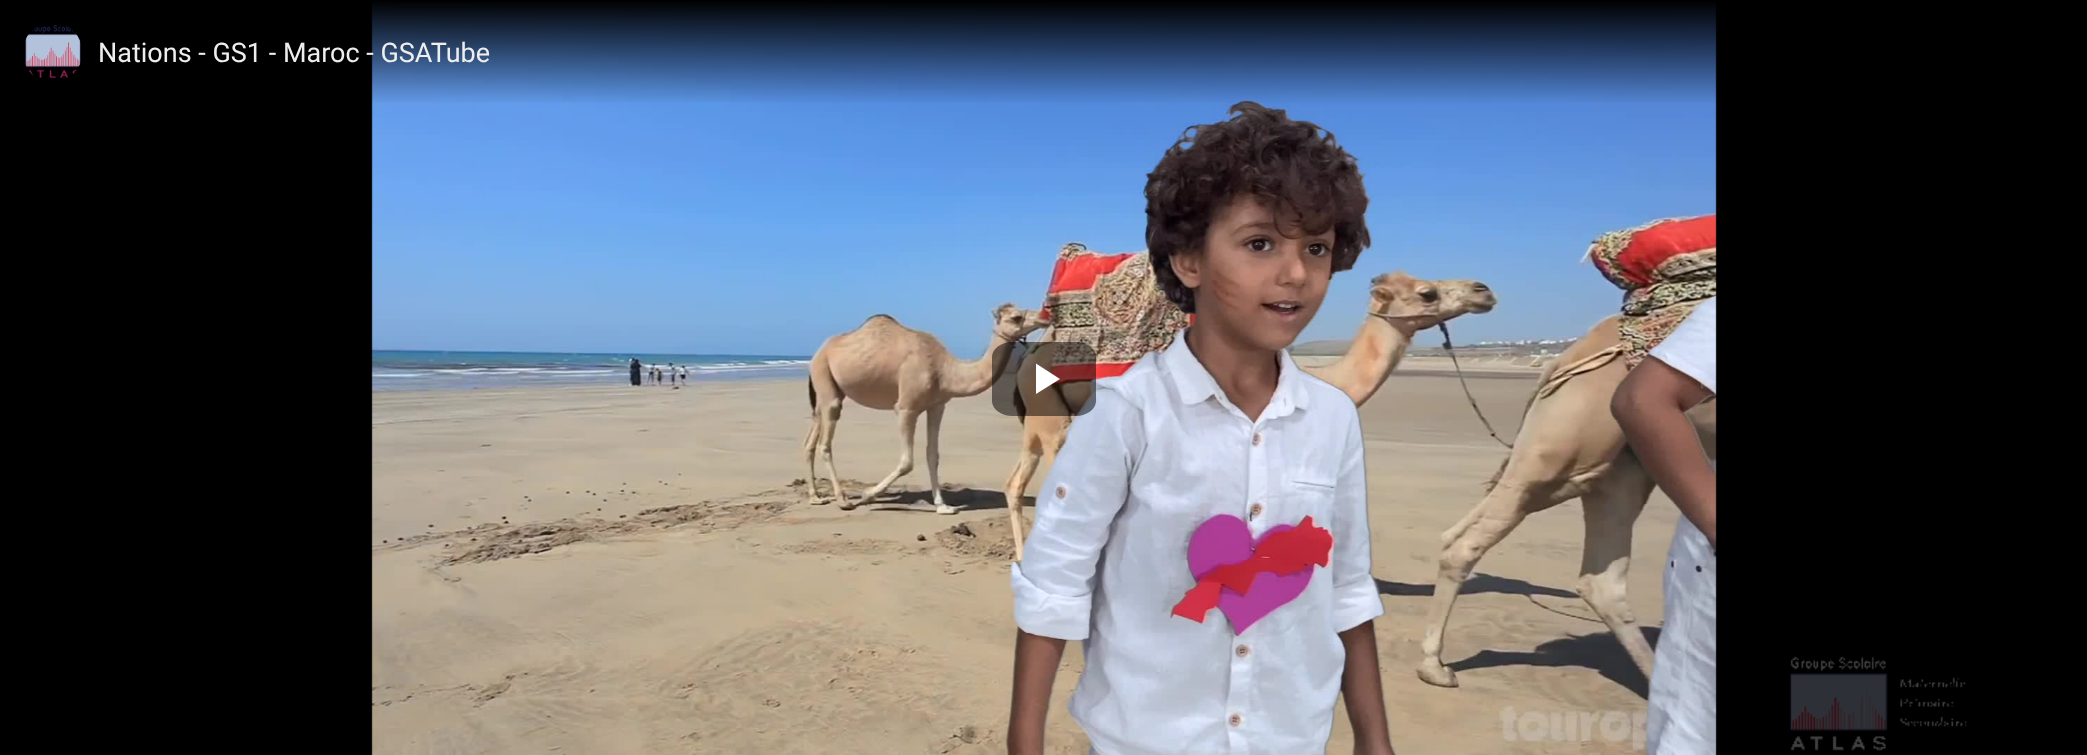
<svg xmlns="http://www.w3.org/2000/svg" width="2087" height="755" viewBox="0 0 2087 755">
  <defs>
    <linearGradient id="g1" gradientUnits="userSpaceOnUse" x1="1044" y1="0" x2="1044" y2="105"><stop offset="0" stop-color="rgb(0,0,0)"/><stop offset="1" stop-color="rgb(0,0,0)" stop-opacity="0"/></linearGradient>
  </defs>
  <rect width="100%" height="100%" fill="rgb(0,0,0)"/>
  <image x="371" y="1" width="1346" height="754" href="pic2.png"/>
  <rect x="371" y="1" width="1346" height="102" fill="url(#g1)"/>
  <image x="25" y="25" width="56" height="53" href="pic1.png"/>
  <text x="98" y="62" font-family="Roboto" font-size="27" fill="rgb(238,238,238)">Nations - GS1 - Maroc - GSATube</text>
  <path d="M1012 342H1076C1087 342 1096 349 1096 357V401C1096 409 1087 416 1076 416H1012C1001 416 992 409 992 401V357C992 349 1001 342 1012 342Z" fill="rgba(0,0,0,0.5)"/>
  <path d="M1036 363.5V394L1060 379Z" fill="rgb(255,255,255)"/>
  <image x="1789" y="656" width="178" height="95" href="pic3.png"/>
</svg>
